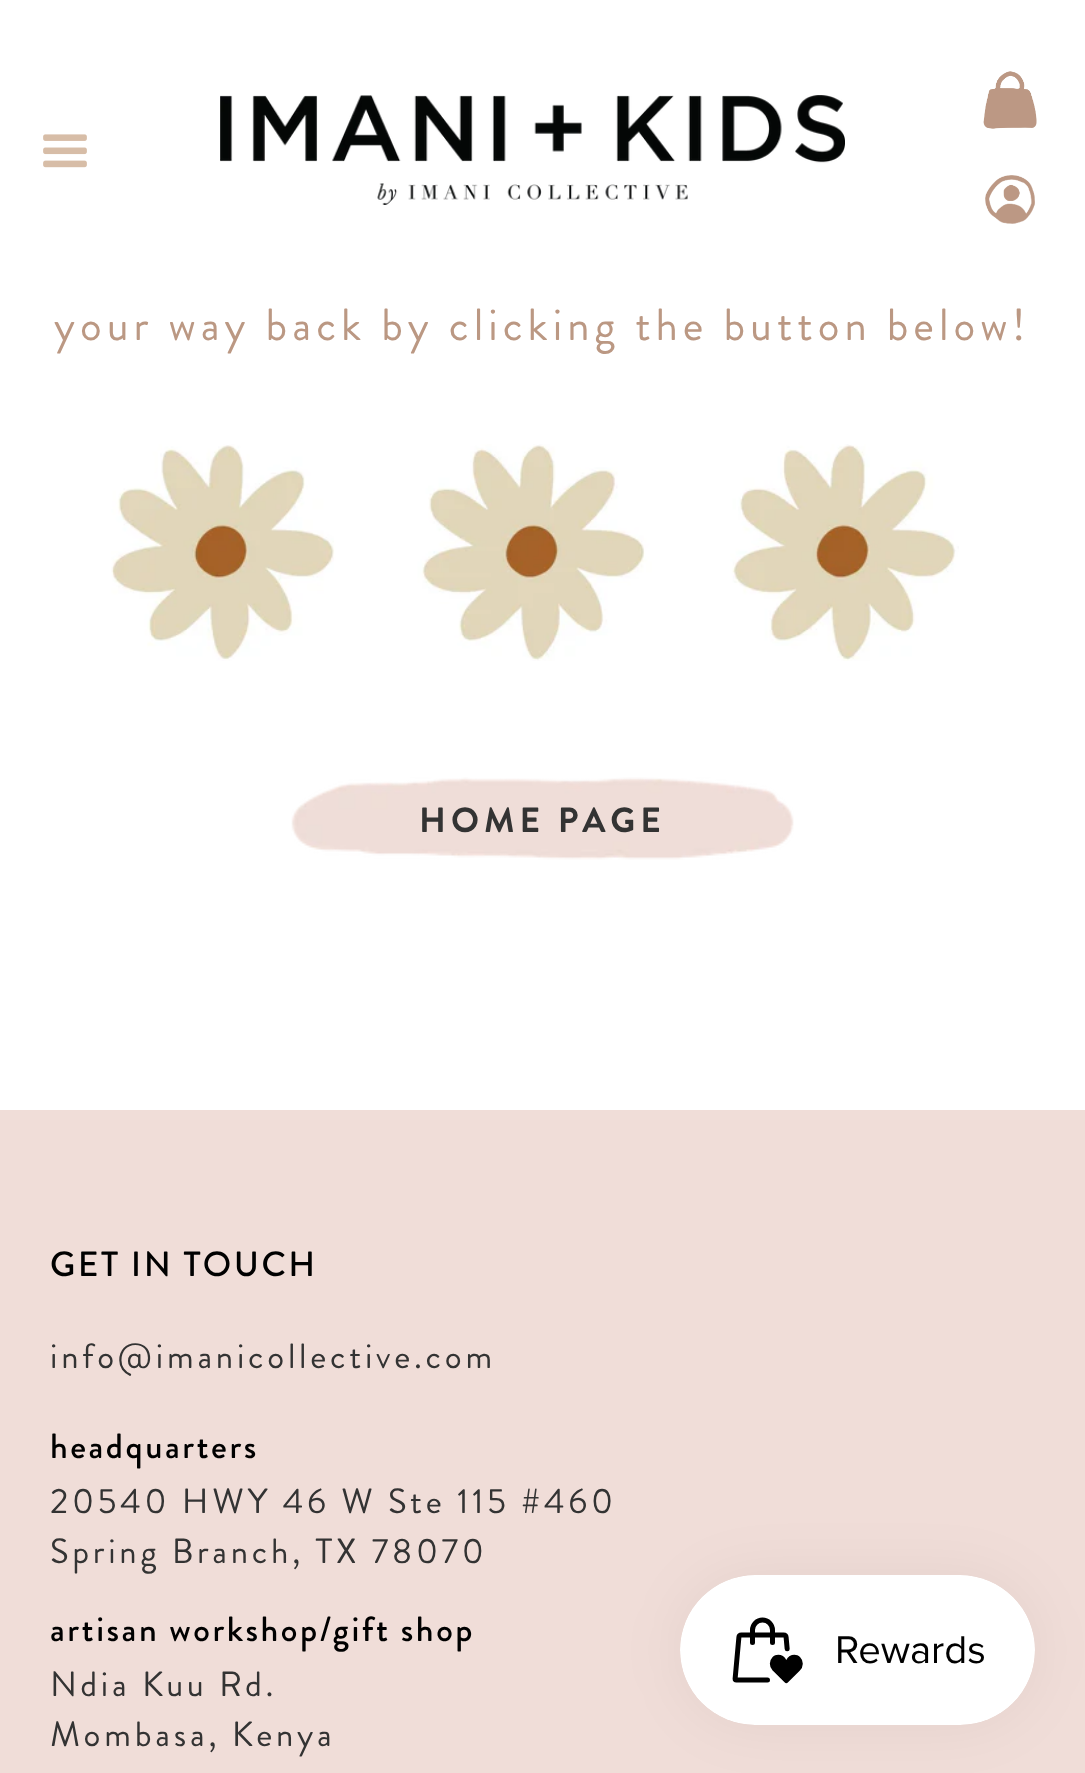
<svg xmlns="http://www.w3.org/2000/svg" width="1085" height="1773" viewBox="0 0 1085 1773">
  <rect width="100%" height="100%" fill="rgb(255,255,255)"/>
  <image x="43" y="134" width="44" height="34" href="pic1.png"/>
  <image x="220" y="95" width="625" height="110" href="pic2.png"/>
  <image x="983" y="71" width="54" height="58" href="pic3.png"/>
  <image x="985" y="175" width="50" height="49" href="pic4.png"/>
  <text x="54" y="340" font-family="Brandon Grotesque" font-size="45" letter-spacing="5" fill="rgb(187,152,131)">your way back by clicking the button below!</text>
  <image x="111" y="444" width="848" height="217" href="pic5.png"/>
  <image x="291" y="777" width="503" height="83" href="pic6.png"/>
  <text x="419" y="832" font-family="Brandon Grotesque" font-size="35" font-weight="bold" letter-spacing="5" fill="rgb(51,51,51)">HOME PAGE</text>
  <rect x="0" y="1110" width="1085" height="663" fill="rgb(240,221,216)"/>
  <text x="50" y="1276" font-family="Brandon Grotesque" font-size="35" font-weight="500" letter-spacing="2.5" fill="rgb(0,0,0)">GET IN TOUCH</text>
  <text x="50" y="1368" font-family="Brandon Grotesque" font-size="35" letter-spacing="3.75" fill="rgb(51,51,51)">info@imanicollective.com</text>
  <text x="50" y="1458" font-family="Brandon Grotesque" font-size="35" font-weight="500" letter-spacing="2.5" fill="rgb(0,0,0)">headquarters</text>
  <g font-family="Brandon Grotesque" font-size="35" letter-spacing="3.75" fill="rgb(51,51,51)">
    <text>
      <tspan x="50" y="1513">20540 HWY 46 W Ste 115 #460</tspan>
      <tspan x="50" y="1563">Spring Branch, TX 78070</tspan>
    </text>
  </g>
  <text x="50" y="1641" font-family="Brandon Grotesque" font-size="35" font-weight="500" letter-spacing="2.5" fill="rgb(0,0,0)">artisan workshop/gift shop</text>
  <g font-family="Brandon Grotesque" font-size="35" letter-spacing="3.75" fill="rgb(51,51,51)">
    <text>
      <tspan x="50" y="1696">Ndia Kuu Rd.</tspan>
      <tspan x="50" y="1746">Mombasa, Kenya</tspan>
    </text>
  </g>
  <rect x="680" y="1575" width="355" height="150" rx="75" fill="rgba(0,0,0,0.05)" filter="blur(31px)"/>
  <image x="680" y="1575" width="355" height="150" href="pic7.png"/>
</svg>
